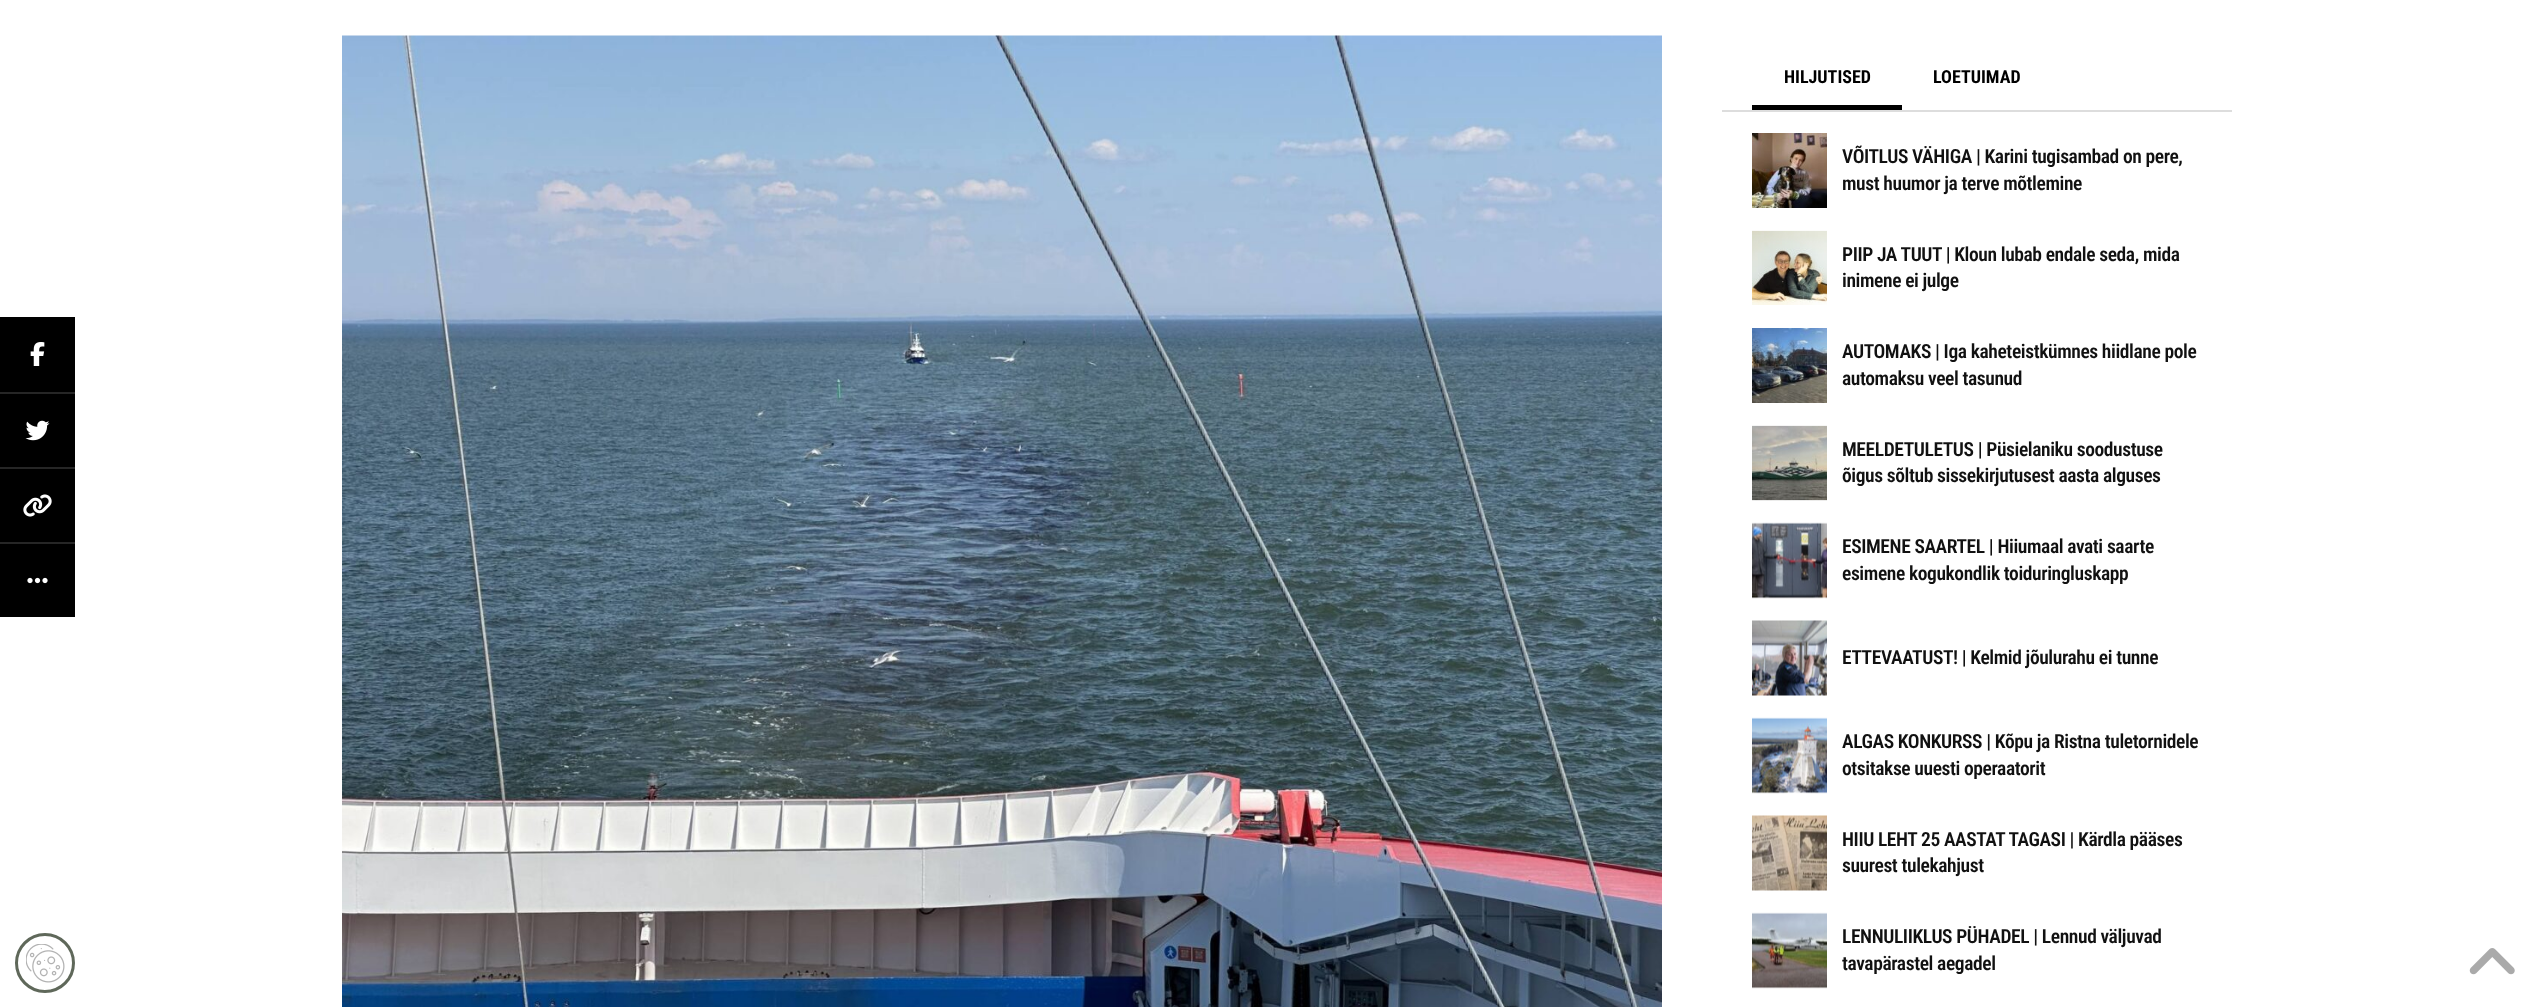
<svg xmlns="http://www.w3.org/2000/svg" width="2544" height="1007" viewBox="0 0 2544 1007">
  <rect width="100%" height="100%" fill="rgb(255,255,255)"/>
  <circle cx="45" cy="963" r="28.5" fill="none" stroke="rgb(95,104,90)" stroke-width="3"/>
  <image x="26" y="944" width="39" height="39" href="pic1.png"/>
  <rect x="0" y="317" width="75" height="75" fill="rgb(0,0,0)"/>
  <image x="30" y="342" width="15" height="24" href="pic2.png"/>
  <rect x="0" y="394" width="75" height="73" fill="rgb(0,0,0)"/>
  <rect x="0" y="392" width="75" height="2" fill="rgb(38,38,38)"/>
  <image x="25" y="420" width="25" height="21" href="pic3.png"/>
  <rect x="0" y="469" width="75" height="73" fill="rgb(0,0,0)"/>
  <rect x="0" y="467" width="75" height="2" fill="rgb(38,38,38)"/>
  <image x="23" y="494" width="29" height="23" href="pic4.png"/>
  <rect x="0" y="544" width="75" height="73" fill="rgb(0,0,0)"/>
  <rect x="0" y="542" width="75" height="2" fill="rgb(38,38,38)"/>
  <image x="27" y="577" width="21" height="7" href="pic5.png"/>
  <image x="342" y="35" width="1320" height="972" href="pic6.png"/>
  <rect x="1722" y="110" width="510" height="2" fill="rgb(221,221,221)"/>
  <rect x="1752" y="105" width="150" height="5" fill="rgb(0,0,0)"/>
  <g font-family="Roboto Condensed" font-size="18" font-weight="bold" fill="rgb(0,0,0)">
    <text x="1784" y="83">HILJUTISED</text>
    <text x="1933" y="83">LOETUIMAD</text>
  </g>
  <image x="1752" y="133" width="75" height="75" href="pic7.png"/>
  <g font-family="Roboto Condensed" font-size="19.5" font-weight="600" letter-spacing="-0.4" fill="rgb(17,17,17)">
    <text>
      <tspan x="1842" y="163">VÕITLUS VÄHIGA | Karini tugisambad on pere,</tspan>
      <tspan x="1842" y="190">must huumor ja terve mõtlemine</tspan>
    </text>
  </g>
  <image x="1752" y="230" width="75" height="75" href="pic8.png"/>
  <g font-family="Roboto Condensed" font-size="19.5" font-weight="600" letter-spacing="-0.4" fill="rgb(17,17,17)">
    <text>
      <tspan x="1842" y="261">PIIP JA TUUT | Kloun lubab endale seda, mida</tspan>
      <tspan x="1842" y="287">inimene ei julge</tspan>
    </text>
  </g>
  <image x="1752" y="328" width="75" height="75" href="pic9.png"/>
  <g font-family="Roboto Condensed" font-size="19.5" font-weight="600" letter-spacing="-0.4" fill="rgb(17,17,17)">
    <text>
      <tspan x="1842" y="358">AUTOMAKS | Iga kaheteistkümnes hiidlane pole</tspan>
      <tspan x="1842" y="385">automaksu veel tasunud</tspan>
    </text>
  </g>
  <image x="1752" y="425" width="75" height="76" href="pic10.png"/>
  <g font-family="Roboto Condensed" font-size="19.5" font-weight="600" letter-spacing="-0.4" fill="rgb(17,17,17)">
    <text>
      <tspan x="1842" y="456">MEELDETULETUS | Püsielaniku soodustuse</tspan>
      <tspan x="1842" y="482">õigus sõltub sissekirjutusest aasta alguses</tspan>
    </text>
  </g>
  <image x="1752" y="522" width="75" height="77" href="pic11.png"/>
  <g font-family="Roboto Condensed" font-size="19.5" font-weight="600" letter-spacing="-0.4" fill="rgb(17,17,17)">
    <text>
      <tspan x="1842" y="553">ESIMENE SAARTEL | Hiiumaal avati saarte</tspan>
      <tspan x="1842" y="580">esimene kogukondlik toiduringluskapp</tspan>
    </text>
  </g>
  <image x="1752" y="620" width="75" height="76" href="pic12.png"/>
  <text x="1842" y="664" font-family="Roboto Condensed" font-size="19.5" font-weight="600" letter-spacing="-0.4" fill="rgb(17,17,17)">ETTEVAATUST! | Kelmid jõulurahu ei tunne</text>
  <image x="1752" y="717" width="75" height="77" href="pic13.png"/>
  <g font-family="Roboto Condensed" font-size="19.5" font-weight="600" letter-spacing="-0.4" fill="rgb(17,17,17)">
    <text>
      <tspan x="1842" y="748">ALGAS KONKURSS | Kõpu ja Ristna tuletornidele</tspan>
      <tspan x="1842" y="775">otsitakse uuesti operaatorit</tspan>
    </text>
  </g>
  <image x="1752" y="815" width="75" height="76" href="pic14.png"/>
  <g font-family="Roboto Condensed" font-size="19.5" font-weight="600" letter-spacing="-0.4" fill="rgb(17,17,17)">
    <text>
      <tspan x="1842" y="846">HIIU LEHT 25 AASTAT TAGASI | Kärdla pääses</tspan>
      <tspan x="1842" y="872">suurest tulekahjust</tspan>
    </text>
  </g>
  <image x="1752" y="912" width="75" height="77" href="pic15.png"/>
  <g font-family="Roboto Condensed" font-size="19.5" font-weight="600" letter-spacing="-0.4" fill="rgb(17,17,17)">
    <text>
      <tspan x="1842" y="943">LENNULIIKLUS PÜHADEL | Lennud väljuvad</tspan>
      <tspan x="1842" y="970">tavapärastel aegadel</tspan>
    </text>
  </g>
  <image x="2469" y="948" width="46" height="27" href="pic16.png"/>
</svg>
